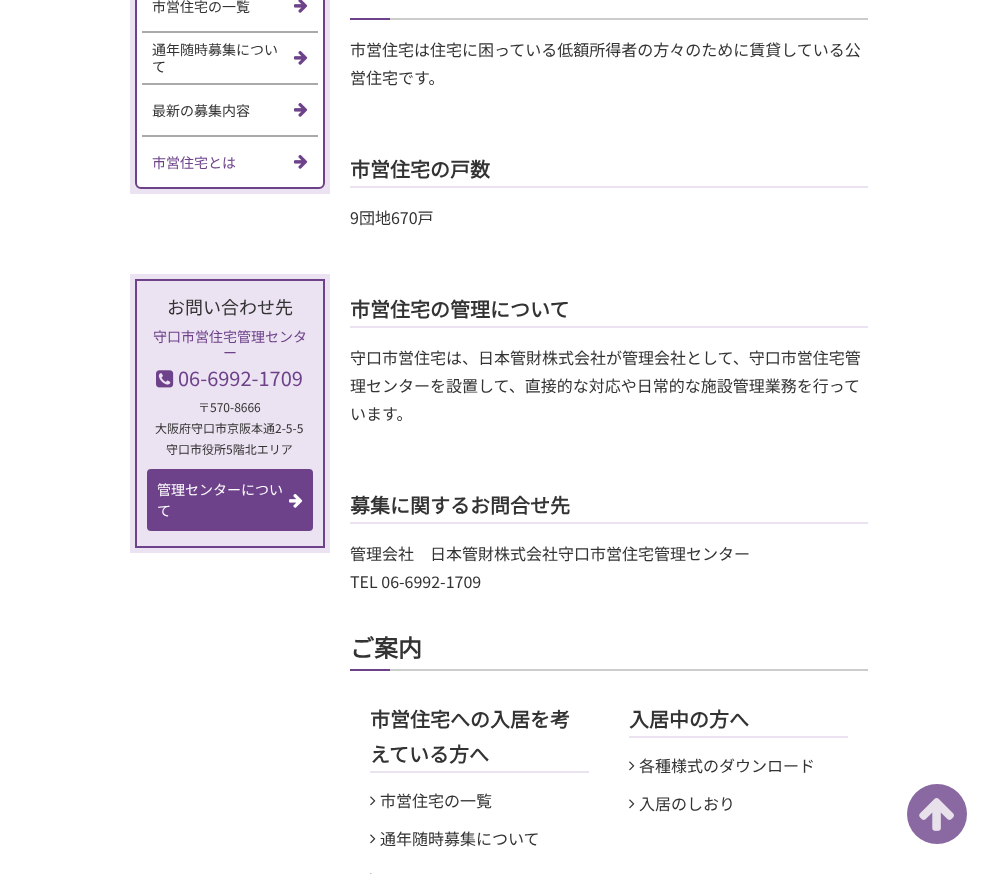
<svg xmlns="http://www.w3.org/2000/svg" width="997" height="874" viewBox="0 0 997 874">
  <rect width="100%" height="100%" fill="rgb(255,255,255)"/>
  <rect x="130" y="0" width="200" height="194" fill="rgb(236,227,242)"/>
  <rect x="136" y="-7" width="188" height="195" rx="5" fill="rgb(255,255,255)" stroke="rgb(109,66,138)" stroke-width="2"/>
  <text x="152" y="12" font-family="Noto Sans JP" font-size="14" font-weight="100" fill="rgb(51,51,51)">市営住宅の一覧</text>
  <image x="294" y="0" width="14" height="13" href="pic1.png"/>
  <rect x="142" y="31" width="176" height="2" fill="rgb(170,170,170)"/>
  <text x="152" y="55" font-family="Noto Sans JP" font-size="14" font-weight="100" fill="rgb(51,51,51)">通年随時募集につい</text>
  <image x="294" y="50" width="14" height="15" href="pic2.png"/>
  <text x="152" y="72" font-family="Noto Sans JP" font-size="14" font-weight="100" fill="rgb(51,51,51)">て</text>
  <rect x="142" y="83" width="176" height="2" fill="rgb(170,170,170)"/>
  <text x="152" y="116" font-family="Noto Sans JP" font-size="14" font-weight="100" fill="rgb(51,51,51)">最新の募集内容</text>
  <image x="294" y="102" width="14" height="15" href="pic2.png"/>
  <rect x="142" y="135" width="176" height="2" fill="rgb(170,170,170)"/>
  <text x="152" y="168" font-family="Noto Sans JP" font-size="14" font-weight="100" fill="rgb(109,66,138)">市営住宅とは</text>
  <image x="294" y="154" width="14" height="15" href="pic2.png"/>
  <rect x="130" y="274" width="200" height="279" fill="rgb(236,227,242)"/>
  <rect x="136" y="280" width="188" height="267" fill="none" stroke="rgb(109,66,138)" stroke-width="2"/>
  <text x="167" y="314" font-family="Noto Sans JP" font-size="18" font-weight="100" fill="rgb(51,51,51)">お問い合わせ先</text>
  <g font-family="Noto Sans JP" font-size="14" font-weight="100" fill="rgb(109,66,138)">
    <text x="153" y="342">守口市営住宅管理センタ</text>
    <text x="223" y="358">ー</text>
  </g>
  <image x="156" y="370" width="18" height="18" href="pic3.png"/>
  <text x="178" y="386" font-family="Noto Sans JP" font-size="20" font-weight="100" fill="rgb(109,66,138)">06-6992-1709</text>
  <g font-family="Noto Sans JP" font-size="12" font-weight="100" fill="rgb(51,51,51)">
    <text x="198" y="412">〒570-8666</text>
    <text x="155" y="433">大阪府守口市京阪本通2-5-5</text>
    <text x="166" y="454">守口市役所5階北エリア</text>
  </g>
  <rect x="147" y="469" width="166" height="62" rx="4" fill="rgb(109,66,138)"/>
  <text x="157" y="495" font-family="Noto Sans JP" font-size="14" font-weight="100" fill="rgb(255,255,255)">管理センターについ</text>
  <image x="289" y="493" width="14" height="15" href="pic4.png"/>
  <text x="157" y="516" font-family="Noto Sans JP" font-size="14" font-weight="100" fill="rgb(255,255,255)">て</text>
  <rect x="350" y="18" width="40" height="2" fill="rgb(109,66,138)"/>
  <rect x="390" y="18" width="478" height="2" fill="rgb(204,204,204)"/>
  <g font-family="Noto Sans JP" font-size="16" font-weight="100" fill="rgb(51,51,51)">
    <text>
      <tspan x="350" y="56">市営住宅は住宅に困っている低額所得者の方々のために賃貸している公</tspan>
      <tspan x="350" y="84">営住宅です。</tspan>
    </text>
  </g>
  <rect x="350" y="186" width="518" height="2" fill="rgb(236,227,242)"/>
  <text x="350" y="177" font-family="Noto Sans JP" font-size="20" font-weight="bold" fill="rgb(51,51,51)">市営住宅の戸数</text>
  <text x="350" y="224" font-family="Noto Sans JP" font-size="16" font-weight="100" fill="rgb(51,51,51)">9団地670戸</text>
  <rect x="350" y="326" width="518" height="2" fill="rgb(236,227,242)"/>
  <text x="350" y="317" font-family="Noto Sans JP" font-size="20" font-weight="bold" fill="rgb(51,51,51)">市営住宅の管理について</text>
  <g font-family="Noto Sans JP" font-size="16" font-weight="100" fill="rgb(51,51,51)">
    <text>
      <tspan x="350" y="364">守口市営住宅は、日本管財株式会社が管理会社として、守口市営住宅管</tspan>
      <tspan x="350" y="392">理センターを設置して、直接的な対応や日常的な施設管理業務を行って</tspan>
      <tspan x="350" y="420">います。</tspan>
    </text>
  </g>
  <rect x="350" y="522" width="518" height="2" fill="rgb(236,227,242)"/>
  <text x="350" y="513" font-family="Noto Sans JP" font-size="20" font-weight="bold" fill="rgb(51,51,51)">募集に関するお問合せ先</text>
  <g font-family="Noto Sans JP" font-size="16" font-weight="100" fill="rgb(51,51,51)">
    <text>
      <tspan x="350" y="560">管理会社　日本管財株式会社守口市営住宅管理センター</tspan>
      <tspan x="350" y="588">TEL 06-6992-1709</tspan>
    </text>
  </g>
  <rect x="350" y="669" width="40" height="2" fill="rgb(109,66,138)"/>
  <rect x="390" y="669" width="478" height="2" fill="rgb(204,204,204)"/>
  <text x="350" y="657" font-family="Noto Sans JP" font-size="24" font-weight="bold" fill="rgb(51,51,51)">ご案内</text>
  <rect x="370" y="771" width="219" height="2" fill="rgb(236,227,242)"/>
  <g font-family="Noto Sans JP" font-size="20" font-weight="bold" fill="rgb(51,51,51)">
    <text>
      <tspan x="370" y="727">市営住宅への入居を考</tspan>
      <tspan x="370" y="762">えている方へ</tspan>
    </text>
  </g>
  <image x="370" y="796" width="6" height="10" href="pic5.png"/>
  <text x="380" y="807" font-family="Noto Sans JP" font-size="16" font-weight="100" fill="rgb(51,51,51)">市営住宅の一覧</text>
  <image x="370" y="834" width="6" height="10" href="pic5.png"/>
  <text x="380" y="845" font-family="Noto Sans JP" font-size="16" font-weight="100" fill="rgb(51,51,51)">通年随時募集について</text>
  <image x="370" y="873" width="2" height="1" href="pic6.png"/>
  <rect x="629" y="736" width="219" height="2" fill="rgb(236,227,242)"/>
  <text x="629" y="727" font-family="Noto Sans JP" font-size="20" font-weight="bold" fill="rgb(51,51,51)">入居中の方へ</text>
  <image x="629" y="761" width="6" height="10" href="pic5.png"/>
  <text x="639" y="772" font-family="Noto Sans JP" font-size="16" font-weight="100" fill="rgb(51,51,51)">各種様式のダウンロード</text>
  <image x="629" y="799" width="6" height="10" href="pic5.png"/>
  <text x="639" y="810" font-family="Noto Sans JP" font-size="16" font-weight="100" fill="rgb(51,51,51)">入居のしおり</text>
  <circle cx="937" cy="814" r="30" fill="rgb(138,104,161)"/>
  <image x="919" y="798" width="35" height="33" href="pic7.png"/>
</svg>
